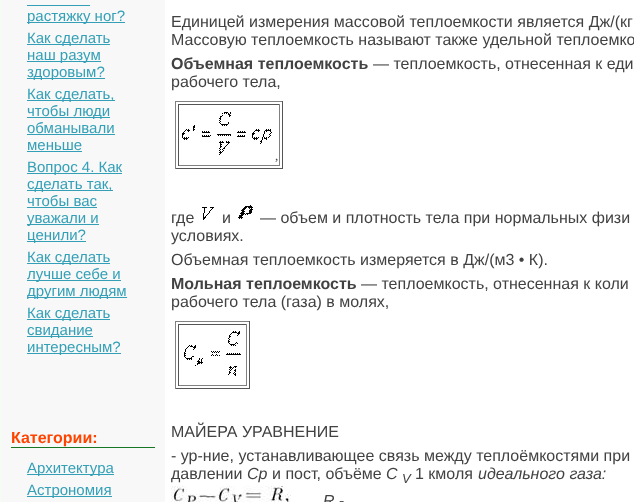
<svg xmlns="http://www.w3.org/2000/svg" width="634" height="502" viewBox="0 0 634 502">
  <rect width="100%" height="100%" fill="rgb(240,255,240)"/>
  <rect x="1" y="0" width="164" height="502" fill="rgb(248,248,248)"/>
  <rect x="27" y="22" width="98" height="1" fill="rgb(52,160,183)"/>
  <text x="27" y="21" font-family="Liberation Sans" font-size="15" fill="rgb(52,160,183)">растяжку ног?</text>
  <rect x="27" y="5" width="63" height="1" fill="rgb(52,160,183)"/>
  <rect x="27" y="44" width="83" height="1" fill="rgb(52,160,183)"/>
  <text x="27" y="43" font-family="Liberation Sans" font-size="15" fill="rgb(52,160,183)">Как сделать</text>
  <rect x="27" y="61" width="74" height="1" fill="rgb(52,160,183)"/>
  <text x="27" y="60" font-family="Liberation Sans" font-size="15" fill="rgb(52,160,183)">наш разум</text>
  <rect x="27" y="78" width="78" height="1" fill="rgb(52,160,183)"/>
  <text x="27" y="77" font-family="Liberation Sans" font-size="15" fill="rgb(52,160,183)">здоровым?</text>
  <rect x="27" y="100" width="88" height="1" fill="rgb(52,160,183)"/>
  <text x="27" y="99" font-family="Liberation Sans" font-size="15" fill="rgb(52,160,183)">Как сделать,</text>
  <rect x="27" y="117" width="83" height="1" fill="rgb(52,160,183)"/>
  <g font-family="Liberation Sans" font-size="15" fill="rgb(52,160,183)">
    <text>
      <tspan x="27" y="116">чтобы люди</tspan>
      <tspan x="27" y="133">обманывали</tspan>
    </text>
  </g>
  <rect x="27" y="134" width="88" height="1" fill="rgb(52,160,183)"/>
  <text x="27" y="150" font-family="Liberation Sans" font-size="15" fill="rgb(52,160,183)">меньше</text>
  <rect x="27" y="151" width="55" height="1" fill="rgb(52,160,183)"/>
  <rect x="27" y="173" width="95" height="1" fill="rgb(52,160,183)"/>
  <text x="27" y="172" font-family="Liberation Sans" font-size="15" fill="rgb(52,160,183)">Вопрос 4. Как</text>
  <rect x="27" y="190" width="86" height="1" fill="rgb(52,160,183)"/>
  <g font-family="Liberation Sans" font-size="15" fill="rgb(52,160,183)">
    <text>
      <tspan x="27" y="189">сделать так,</tspan>
      <tspan x="27" y="206">чтобы вас</tspan>
    </text>
  </g>
  <rect x="27" y="207" width="70" height="1" fill="rgb(52,160,183)"/>
  <rect x="27" y="224" width="72" height="1" fill="rgb(52,160,183)"/>
  <text x="27" y="223" font-family="Liberation Sans" font-size="15" fill="rgb(52,160,183)">уважали и</text>
  <rect x="27" y="241" width="59" height="1" fill="rgb(52,160,183)"/>
  <text x="27" y="240" font-family="Liberation Sans" font-size="15" fill="rgb(52,160,183)">ценили?</text>
  <rect x="27" y="263" width="83" height="1" fill="rgb(52,160,183)"/>
  <text x="27" y="262" font-family="Liberation Sans" font-size="15" fill="rgb(52,160,183)">Как сделать</text>
  <rect x="27" y="280" width="94" height="1" fill="rgb(52,160,183)"/>
  <text x="27" y="279" font-family="Liberation Sans" font-size="15" fill="rgb(52,160,183)">лучше себе и</text>
  <rect x="27" y="297" width="100" height="1" fill="rgb(52,160,183)"/>
  <text x="27" y="296" font-family="Liberation Sans" font-size="15" fill="rgb(52,160,183)">другим людям</text>
  <rect x="27" y="319" width="83" height="1" fill="rgb(52,160,183)"/>
  <text x="27" y="318" font-family="Liberation Sans" font-size="15" fill="rgb(52,160,183)">Как сделать</text>
  <rect x="27" y="336" width="66" height="1" fill="rgb(52,160,183)"/>
  <text x="27" y="335" font-family="Liberation Sans" font-size="15" fill="rgb(52,160,183)">свидание</text>
  <rect x="27" y="353" width="94" height="1" fill="rgb(52,160,183)"/>
  <text x="27" y="352" font-family="Liberation Sans" font-size="15" fill="rgb(52,160,183)">интересным?</text>
  <rect x="11" y="447" width="144" height="1" fill="rgb(21,119,33)"/>
  <text x="11" y="443" font-family="Liberation Sans" font-size="16" font-weight="bold" fill="rgb(255,68,0)">Категории:</text>
  <rect x="27" y="474" width="87" height="1" fill="rgb(52,160,183)"/>
  <text x="27" y="473" font-family="Liberation Sans" font-size="15" fill="rgb(52,160,183)">Архитектура</text>
  <rect x="27" y="496" width="85" height="1" fill="rgb(52,160,183)"/>
  <text x="27" y="495" font-family="Liberation Sans" font-size="15" fill="rgb(52,160,183)">Астрономия</text>
  <rect x="165" y="0" width="469" height="502" fill="rgb(255,255,255)"/>
  <g font-family="Liberation Sans" font-size="16" fill="rgb(66,66,66)">
    <text>
      <tspan x="171" y="27">Единицей измерения массовой теплоемкости является Дж/(кг</tspan>
      <tspan x="171" y="45">Массовую теплоемкость называют также удельной теплоемко</tspan>
    </text>
  </g>
  <text x="171" y="69" font-family="Liberation Sans" font-size="16" font-weight="bold" fill="rgb(66,66,66)">Объемная теплоемкость</text>
  <g font-family="Liberation Sans" font-size="16" fill="rgb(66,66,66)">
    <text x="373" y="69">— теплоемкость, отнесенная к еди</text>
    <text x="171" y="87">рабочего тела,</text>
  </g>
  <rect x="175" y="101" width="108" height="1" fill="rgb(128,128,128)"/>
  <rect x="282" y="101" width="1" height="68" fill="rgb(85,85,85)"/>
  <rect x="175" y="168" width="108" height="1" fill="rgb(85,85,85)"/>
  <rect x="175" y="101" width="1" height="68" fill="rgb(128,128,128)"/>
  <rect x="178" y="104" width="102" height="1" fill="rgb(85,85,85)"/>
  <rect x="279" y="104" width="1" height="62" fill="rgb(128,128,128)"/>
  <rect x="178" y="165" width="102" height="1" fill="rgb(128,128,128)"/>
  <rect x="178" y="104" width="1" height="62" fill="rgb(85,85,85)"/>
  <image x="182" y="112" width="90" height="43" href="pic1.png"/>
  <text x="275" y="160" font-family="Liberation Serif" font-size="13" fill="rgb(66,66,66)">,</text>
  <text x="171" y="223" font-family="Liberation Sans" font-size="16" fill="rgb(66,66,66)">где</text>
  <image x="202" y="207" width="12" height="13" href="pic2.png"/>
  <text x="222" y="223" font-family="Liberation Sans" font-size="16" fill="rgb(66,66,66)">и</text>
  <image x="238" y="205" width="15" height="14" href="pic3.png"/>
  <g font-family="Liberation Sans" font-size="16" fill="rgb(66,66,66)">
    <text x="260" y="223">— объем и плотность тела при нормальных физи</text>
    <text>
      <tspan x="171" y="241">условиях.</tspan>
      <tspan x="171" y="265">Объемная теплоемкость измеряется в Дж/(м3 • К).</tspan>
    </text>
  </g>
  <text x="171" y="289" font-family="Liberation Sans" font-size="16" font-weight="bold" fill="rgb(66,66,66)">Мольная теплоемкость</text>
  <g font-family="Liberation Sans" font-size="16" fill="rgb(66,66,66)">
    <text x="361" y="289">— теплоемкость, отнесенная к коли</text>
    <text x="171" y="307">рабочего тела (газа) в молях,</text>
  </g>
  <rect x="175" y="321" width="75" height="1" fill="rgb(128,128,128)"/>
  <rect x="249" y="321" width="1" height="68" fill="rgb(85,85,85)"/>
  <rect x="175" y="388" width="75" height="1" fill="rgb(85,85,85)"/>
  <rect x="175" y="321" width="1" height="68" fill="rgb(128,128,128)"/>
  <rect x="178" y="324" width="69" height="1" fill="rgb(85,85,85)"/>
  <rect x="246" y="324" width="1" height="62" fill="rgb(128,128,128)"/>
  <rect x="178" y="385" width="69" height="1" fill="rgb(128,128,128)"/>
  <rect x="178" y="324" width="1" height="62" fill="rgb(85,85,85)"/>
  <image x="184" y="331" width="57" height="45" href="pic4.png"/>
  <g font-family="Liberation Sans" font-size="16" fill="rgb(66,66,66)">
    <text>
      <tspan x="171" y="437">МАЙЕРА УРАВНЕНИЕ</tspan>
      <tspan x="171" y="461">- ур-ние, устанавливающее связь между теплоёмкостями при</tspan>
      <tspan x="171" y="479">давлении</tspan>
    </text>
  </g>
  <text x="247" y="479" font-family="Liberation Sans" font-size="16" font-style="italic" fill="rgb(66,66,66)">Cp</text>
  <text x="272" y="479" font-family="Liberation Sans" font-size="16" fill="rgb(66,66,66)">и пост, объёме</text>
  <text x="386" y="479" font-family="Liberation Sans" font-size="16" font-style="italic" fill="rgb(66,66,66)">С</text>
  <text x="402" y="483" font-family="Liberation Sans" font-size="13" font-style="italic" fill="rgb(66,66,66)">V</text>
  <text x="415" y="479" font-family="Liberation Sans" font-size="16" fill="rgb(66,66,66)">1 кмоля</text>
  <text x="478" y="479" font-family="Liberation Sans" font-size="16" font-style="italic" fill="rgb(66,66,66)">идеального газа:</text>
  <image x="171" y="486" width="120" height="16" href="pic5.png"/>
  <text x="323" y="506" font-family="Liberation Sans" font-size="16" font-style="italic" fill="rgb(66,66,66)">R</text>
  <text x="339" y="506" font-family="Liberation Sans" font-size="16" fill="rgb(66,66,66)">-</text>
</svg>
